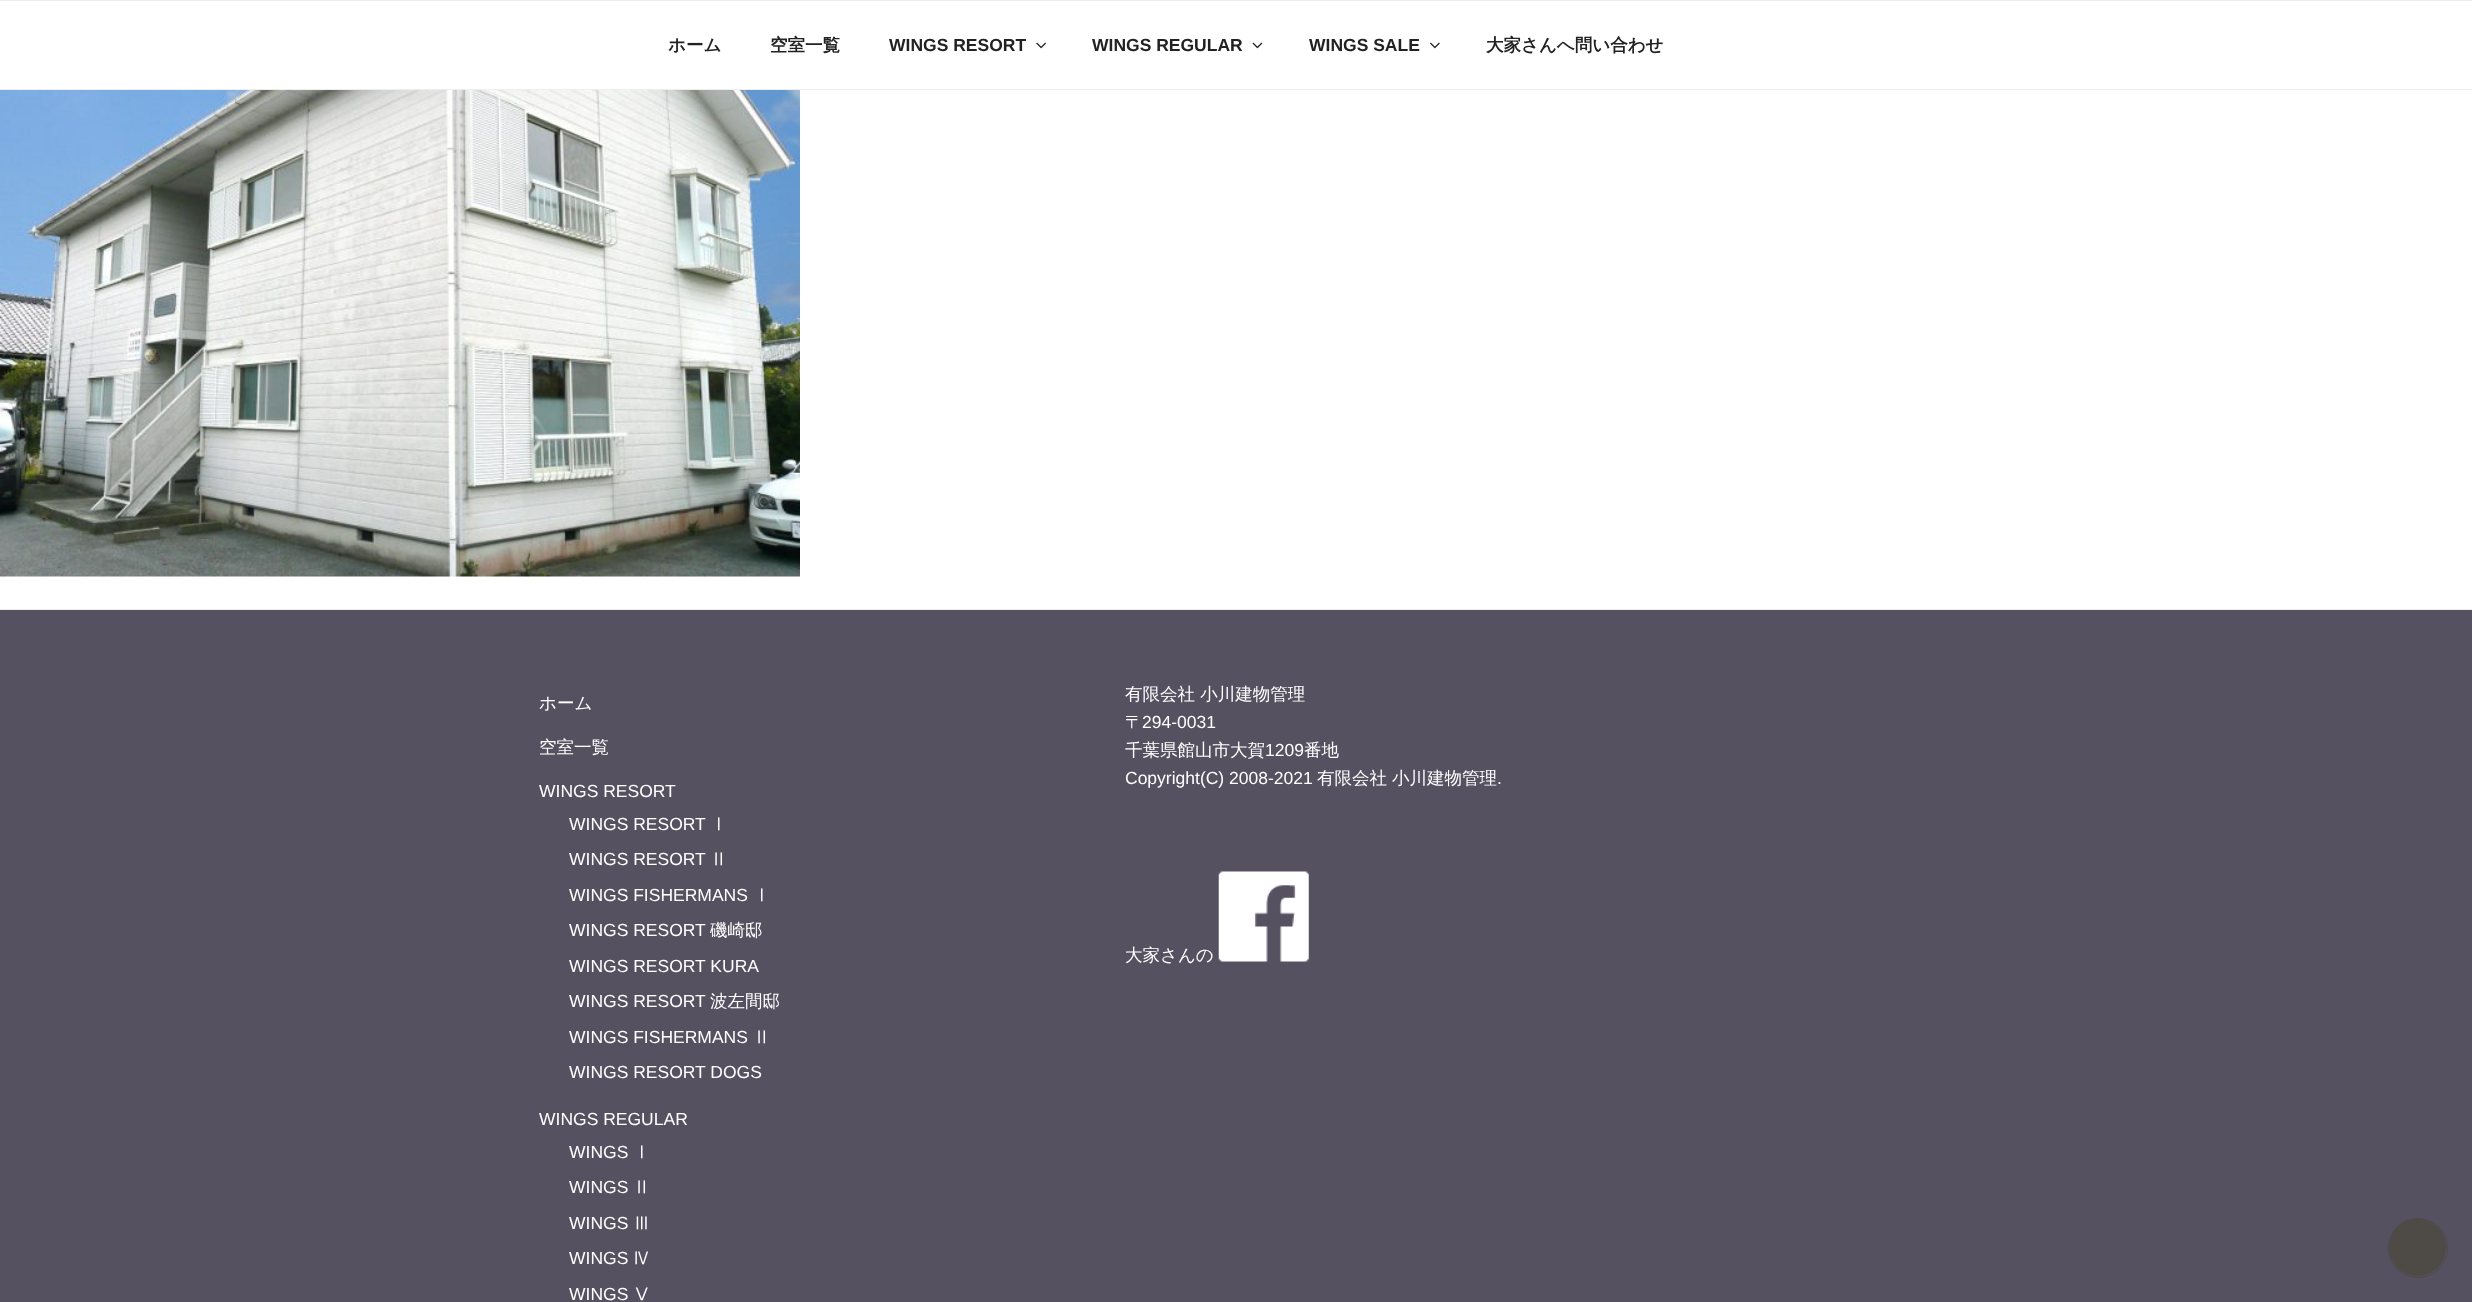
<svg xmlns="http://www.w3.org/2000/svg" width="2472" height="1302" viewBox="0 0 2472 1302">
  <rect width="100%" height="100%" fill="rgb(255,255,255)"/>
  <rect x="0" y="0" width="2472" height="1" fill="rgb(238,238,238)"/>
  <rect x="0" y="89" width="2472" height="1" fill="rgb(238,238,238)"/>
  <g font-family="WenQuanYi Zen Hei" font-size="17.5" font-weight="bold" fill="rgb(34,34,34)">
    <text x="668" y="51">ホーム</text>
    <text x="770" y="51">空室一覧</text>
  </g>
  <text x="889" y="51" font-family="Liberation Sans" font-size="17.5" font-weight="bold" fill="rgb(34,34,34)">WINGS RESORT</text>
  <image x="1036" y="42" width="10" height="7" href="pic1.png"/>
  <text x="1092" y="51" font-family="Liberation Sans" font-size="17.5" font-weight="bold" fill="rgb(34,34,34)">WINGS REGULAR</text>
  <image x="1252" y="42" width="11" height="7" href="pic2.png"/>
  <text x="1309" y="51" font-family="Liberation Sans" font-size="17.5" font-weight="bold" fill="rgb(34,34,34)">WINGS SALE</text>
  <image x="1430" y="42" width="10" height="7" href="pic3.png"/>
  <text x="1486" y="51" font-family="WenQuanYi Zen Hei" font-size="17.5" font-weight="bold" fill="rgb(34,34,34)">大家さんへ問い合わせ</text>
  <image x="0" y="90" width="800" height="487" href="pic4.png"/>
  <rect x="0" y="610" width="2472" height="692" fill="rgb(85,81,96)"/>
  <rect x="0" y="609" width="2472" height="1" fill="rgb(238,238,238)"/>
  <g font-family="WenQuanYi Zen Hei" font-size="17.5" font-weight="500" fill="rgb(255,255,255)">
    <text x="539" y="709">ホーム</text>
    <text x="539" y="753">空室一覧</text>
  </g>
  <g font-family="Liberation Sans" font-size="17.5" fill="rgb(255,255,255)">
    <text x="539" y="797">WINGS RESORT</text>
    <text x="569" y="830">WINGS RESORT</text>
  </g>
  <text x="710" y="830" font-family="WenQuanYi Zen Hei" font-size="17.5" font-weight="500" fill="rgb(255,255,255)">Ⅰ</text>
  <text x="569" y="865" font-family="Liberation Sans" font-size="17.5" fill="rgb(255,255,255)">WINGS RESORT</text>
  <text x="710" y="865" font-family="WenQuanYi Zen Hei" font-size="17.5" font-weight="500" fill="rgb(255,255,255)">Ⅱ</text>
  <text x="569" y="901" font-family="Liberation Sans" font-size="17.5" fill="rgb(255,255,255)">WINGS FISHERMANS</text>
  <text x="753" y="901" font-family="WenQuanYi Zen Hei" font-size="17.5" font-weight="500" fill="rgb(255,255,255)">Ⅰ</text>
  <text x="569" y="936" font-family="Liberation Sans" font-size="17.5" fill="rgb(255,255,255)">WINGS RESORT</text>
  <text x="710" y="936" font-family="WenQuanYi Zen Hei" font-size="17.5" font-weight="500" fill="rgb(255,255,255)">磯崎邸</text>
  <g font-family="Liberation Sans" font-size="17.5" fill="rgb(255,255,255)">
    <text x="569" y="972">WINGS RESORT KURA</text>
    <text x="569" y="1007">WINGS RESORT</text>
  </g>
  <text x="710" y="1007" font-family="WenQuanYi Zen Hei" font-size="17.5" font-weight="500" fill="rgb(255,255,255)">波左間邸</text>
  <text x="569" y="1043" font-family="Liberation Sans" font-size="17.5" fill="rgb(255,255,255)">WINGS FISHERMANS</text>
  <text x="753" y="1043" font-family="WenQuanYi Zen Hei" font-size="17.5" font-weight="500" fill="rgb(255,255,255)">Ⅱ</text>
  <g font-family="Liberation Sans" font-size="17.5" fill="rgb(255,255,255)">
    <text x="569" y="1078">WINGS RESORT DOGS</text>
    <text x="539" y="1125">WINGS REGULAR</text>
    <text x="569" y="1158">WINGS</text>
  </g>
  <text x="633" y="1158" font-family="WenQuanYi Zen Hei" font-size="17.5" font-weight="500" fill="rgb(255,255,255)">Ⅰ</text>
  <text x="569" y="1193" font-family="Liberation Sans" font-size="17.5" fill="rgb(255,255,255)">WINGS</text>
  <text x="633" y="1193" font-family="WenQuanYi Zen Hei" font-size="17.5" font-weight="500" fill="rgb(255,255,255)">Ⅱ</text>
  <text x="569" y="1229" font-family="Liberation Sans" font-size="17.5" fill="rgb(255,255,255)">WINGS</text>
  <text x="633" y="1229" font-family="WenQuanYi Zen Hei" font-size="17.5" font-weight="500" fill="rgb(255,255,255)">Ⅲ</text>
  <text x="569" y="1264" font-family="Liberation Sans" font-size="17.5" fill="rgb(255,255,255)">WINGS</text>
  <text x="633" y="1264" font-family="WenQuanYi Zen Hei" font-size="17.5" font-weight="500" fill="rgb(255,255,255)">Ⅳ</text>
  <text x="569" y="1300" font-family="Liberation Sans" font-size="17.5" fill="rgb(255,255,255)">WINGS</text>
  <g font-family="WenQuanYi Zen Hei" font-size="17.5" font-weight="500" fill="rgb(255,255,255)">
    <text x="633" y="1300">Ⅴ</text>
    <text>
      <tspan x="1125" y="700">有限会社 小川建物管理</tspan>
      <tspan x="1125" y="728">〒</tspan>
    </text>
  </g>
  <text x="1142" y="728" font-family="Liberation Sans" font-size="17.5" fill="rgb(255,255,255)">294-0031</text>
  <text x="1125" y="756" font-family="WenQuanYi Zen Hei" font-size="17.5" font-weight="500" fill="rgb(255,255,255)">千葉県館山市大賀</text>
  <text x="1265" y="756" font-family="Liberation Sans" font-size="17.5" fill="rgb(255,255,255)">1209</text>
  <text x="1304" y="756" font-family="WenQuanYi Zen Hei" font-size="17.5" font-weight="500" fill="rgb(255,255,255)">番地</text>
  <text x="1125" y="784" font-family="Liberation Sans" font-size="17.5" fill="rgb(255,255,255)">Copyright(C) 2008-2021</text>
  <g font-family="WenQuanYi Zen Hei" font-size="17.5" font-weight="500" fill="rgb(255,255,255)">
    <text x="1317" y="784">有限会社</text>
    <text x="1392" y="784">小川建物管理</text>
  </g>
  <text x="1497" y="784" font-family="Liberation Sans" font-size="17.5" fill="rgb(255,255,255)">.</text>
  <text x="1125" y="961" font-family="WenQuanYi Zen Hei" font-size="17.5" font-weight="500" fill="rgb(255,255,255)">大家さんの</text>
  <image x="1218" y="871" width="91" height="91" href="pic5.png"/>
  <circle cx="2417.5" cy="1247.5" r="28.5" fill="rgb(78,74,70)"/>
  <circle cx="2418" cy="1248" r="29.5" fill="none" stroke="rgb(78,74,70)"/>
</svg>
